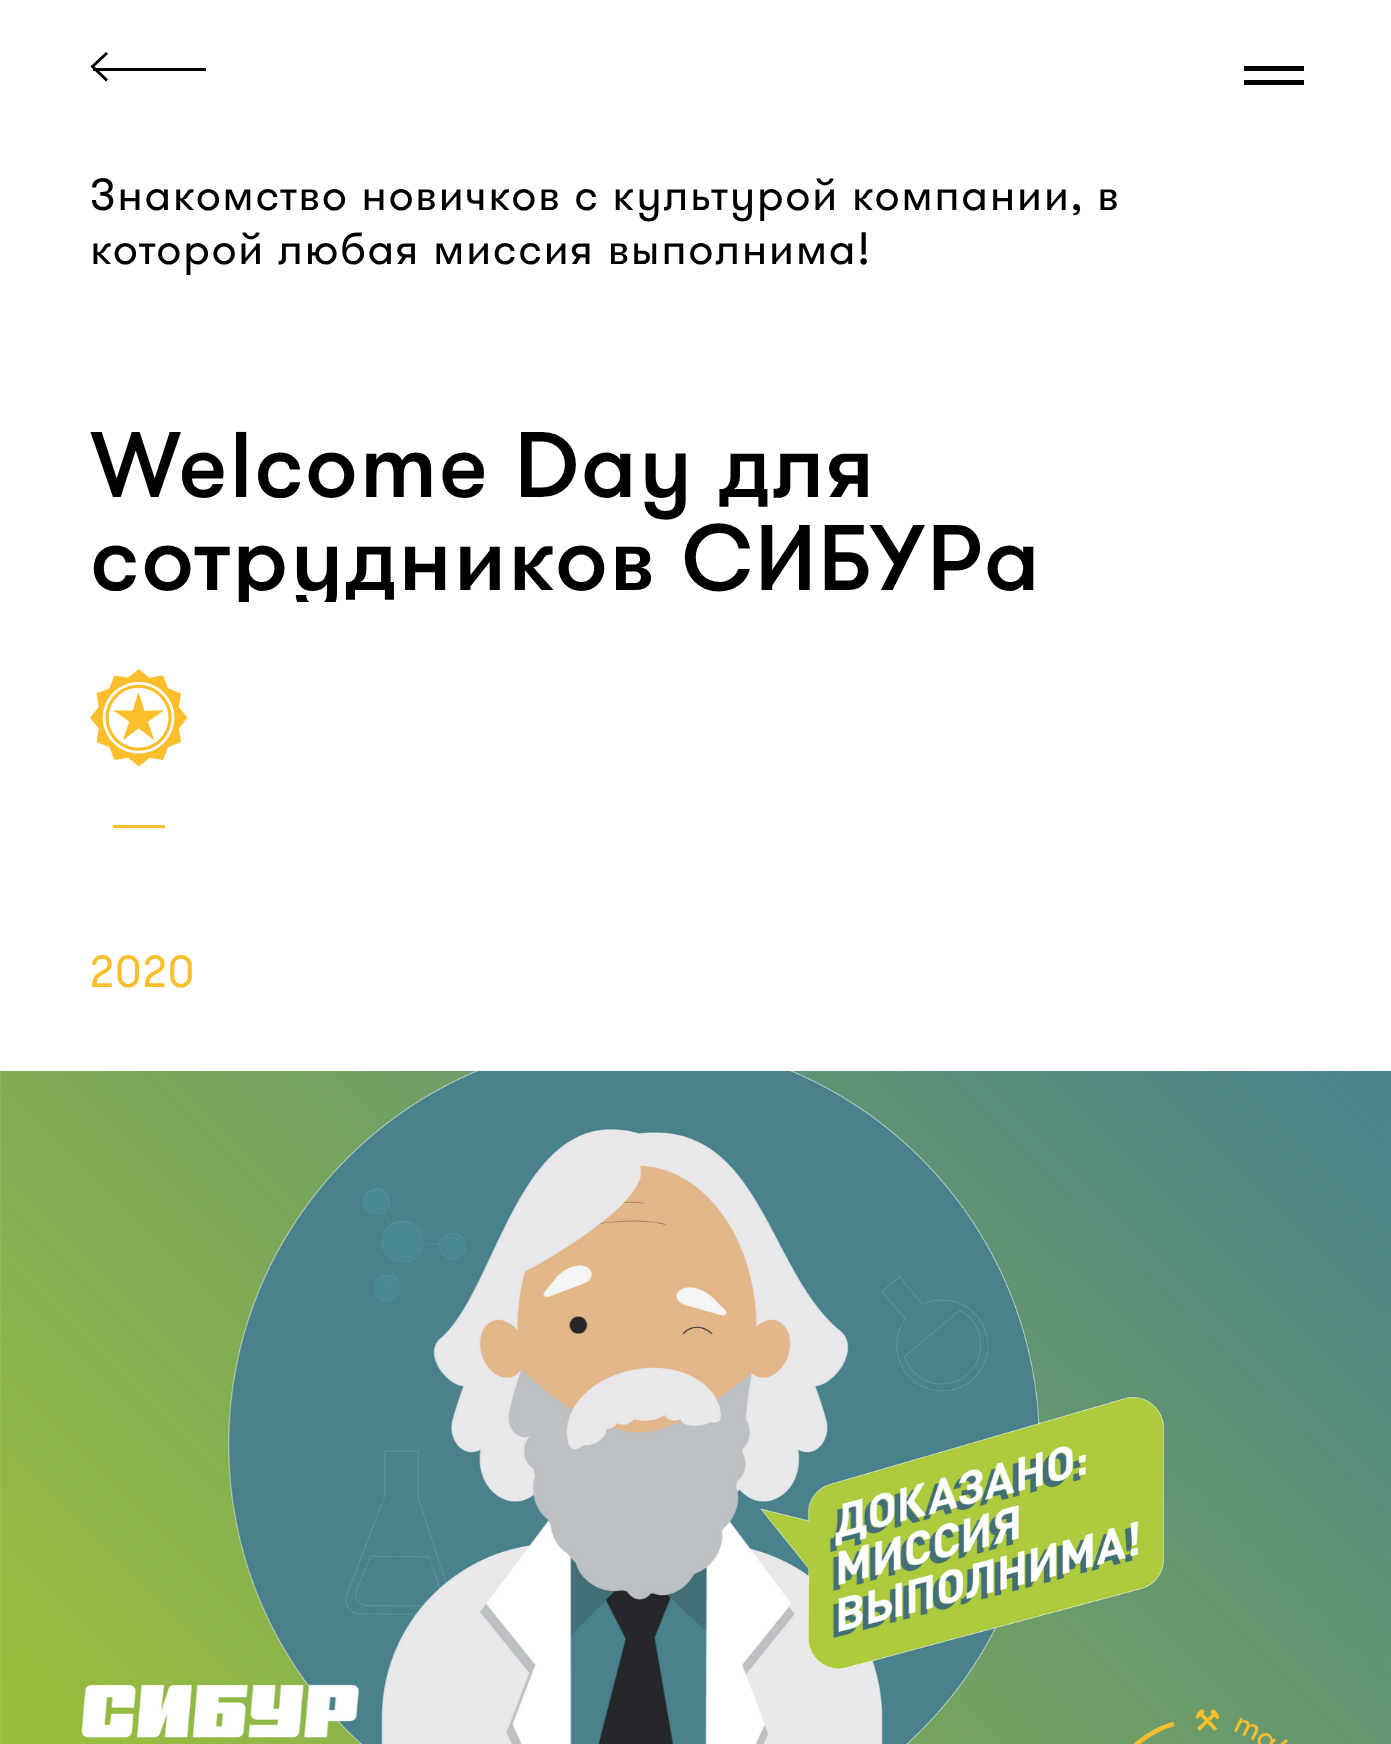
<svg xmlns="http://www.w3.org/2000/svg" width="1391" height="1744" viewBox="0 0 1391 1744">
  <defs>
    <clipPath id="clip1"><rect x="90" y="416" width="1212" height="186"/></clipPath>
  </defs>
  <rect width="100%" height="100%" fill="rgb(255,255,255)"/>
  <rect x="1244" y="66" width="60" height="5" fill="rgb(0,0,0)"/>
  <rect x="1244" y="80" width="60" height="5" fill="rgb(0,0,0)"/>
  <path d="M107 80.5L92.5 66.5L107 53" fill="none" stroke="rgb(0,0,0)" stroke-width="2.9"/>
  <rect x="93" y="68" width="113" height="3" fill="rgb(0,0,0)"/>
  <g font-family="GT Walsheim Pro" font-size="45" letter-spacing="1.5" fill="rgb(0,0,0)">
    <text>
      <tspan x="90" y="210">Знакомство новичков с культурой компании, в</tspan>
      <tspan x="90" y="264">которой любая миссия выполнима!</tspan>
    </text>
  </g>
  <text x="90" y="497" font-family="GT Walsheim Pro" font-size="93" font-weight="500" letter-spacing="1.5" fill="rgb(0,0,0)">Welcome Day для</text>
  <g clip-path="url(#clip1)">
    <text x="90" y="590" font-family="GT Walsheim Pro" font-size="93" font-weight="500" letter-spacing="1.5" fill="rgb(0,0,0)">сотрудников СИБУРа</text>
  </g>
  <image x="90" y="669" width="98" height="98" href="pic1.png"/>
  <rect x="113" y="825" width="52" height="3" fill="rgb(252,191,43)"/>
  <text x="90" y="987" font-family="GT Walsheim Pro" font-size="45" letter-spacing="1.5" fill="rgb(252,191,43)">2020</text>
  <image x="0" y="1071" width="1391" height="673" href="pic2.png"/>
  <image x="1133" y="1709" width="155" height="35" href="pic3.png"/>
</svg>
